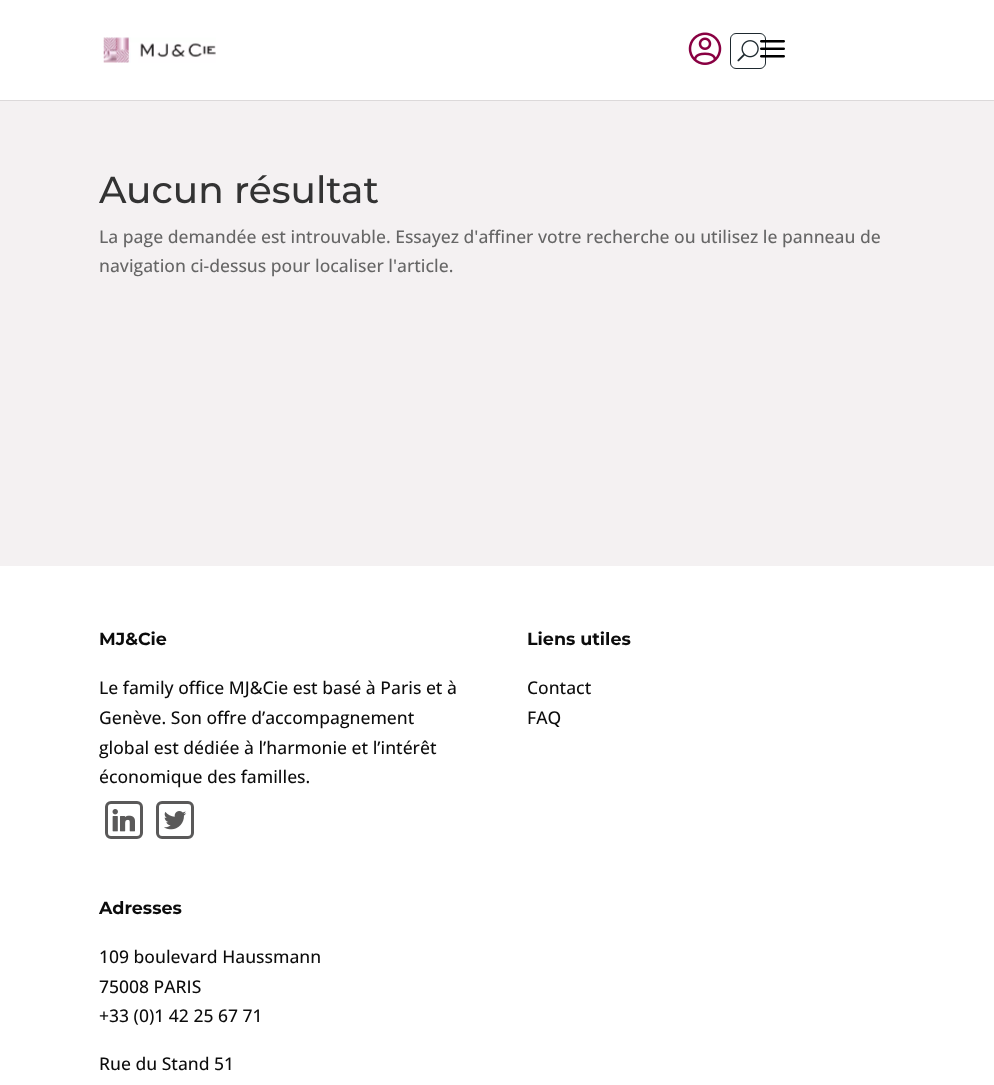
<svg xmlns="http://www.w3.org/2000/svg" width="994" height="1085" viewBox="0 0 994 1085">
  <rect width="100%" height="100%" fill="rgb(255,255,255)"/>
  <rect x="0" y="100" width="994" height="1" fill="rgb(220,217,218)"/>
  <image x="103" y="37" width="113" height="26" href="pic1.png"/>
  <image x="688" y="32" width="34" height="33" href="pic2.png"/>
  <rect x="730.5" y="33.5" width="35" height="35" rx="5.5" fill="none" stroke="rgb(30,41,47)"/>
  <image x="737" y="40" width="22" height="22" href="pic3.png"/>
  <image x="760" y="40" width="25" height="18" href="pic4.png"/>
  <rect x="0" y="101" width="994" height="465" fill="rgb(244,241,242)"/>
  <text x="99" y="203" font-family="Montserrat" font-size="37.5" font-weight="100" fill="rgb(51,51,51)">Aucun résultat</text>
  <g font-family="Open Sans" font-size="17.5" font-weight="500" fill="rgb(102,102,102)">
    <text>
      <tspan x="99" y="243">La page demandée est introuvable. Essayez d'affiner votre recherche ou utilisez le panneau de</tspan>
      <tspan x="99" y="272">navigation ci-dessus pour localiser l'article.</tspan>
    </text>
  </g>
  <text x="99" y="645" font-family="'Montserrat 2'" font-size="17.5" font-weight="100" fill="rgb(12,12,12)">MJ&amp;Cie</text>
  <g font-family="Open Sans" font-size="17.5" font-weight="500" fill="rgb(12,12,12)">
    <text>
      <tspan x="99" y="694">Le family office MJ&amp;Cie est basé à Paris et à</tspan>
      <tspan x="99" y="724">Genève. Son offre d’accompagnement</tspan>
      <tspan x="99" y="754">global est dédiée à l’harmonie et l’intérêt</tspan>
      <tspan x="99" y="783">économique des familles.</tspan>
    </text>
  </g>
  <rect x="106.5" y="802.5" width="35" height="35" rx="4.5" fill="none" stroke="rgb(90,89,89)" stroke-width="3"/>
  <image x="112" y="809" width="23" height="23" href="pic5.png"/>
  <rect x="157.5" y="802.5" width="35" height="35" rx="4.5" fill="none" stroke="rgb(90,89,89)" stroke-width="3"/>
  <image x="164" y="811" width="23" height="19" href="pic6.png"/>
  <text x="527" y="645" font-family="'Montserrat 2'" font-size="17.5" font-weight="100" fill="rgb(12,12,12)">Liens utiles</text>
  <g font-family="Open Sans" font-size="17.5" font-weight="500" fill="rgb(12,12,12)">
    <text>
      <tspan x="527" y="694">Contact</tspan>
      <tspan x="527" y="724">FAQ</tspan>
    </text>
  </g>
  <text x="99" y="914" font-family="'Montserrat 2'" font-size="17.5" font-weight="100" fill="rgb(12,12,12)">Adresses</text>
  <g font-family="Open Sans" font-size="17.5" font-weight="500" fill="rgb(12,12,12)">
    <text>
      <tspan x="99" y="963">109 boulevard Haussmann</tspan>
      <tspan x="99" y="993">75008 PARIS</tspan>
      <tspan x="99" y="1022">+33 (0)1 42 25 67 71</tspan>
    </text>
    <text x="99" y="1070">Rue du Stand 51</text>
  </g>
</svg>
